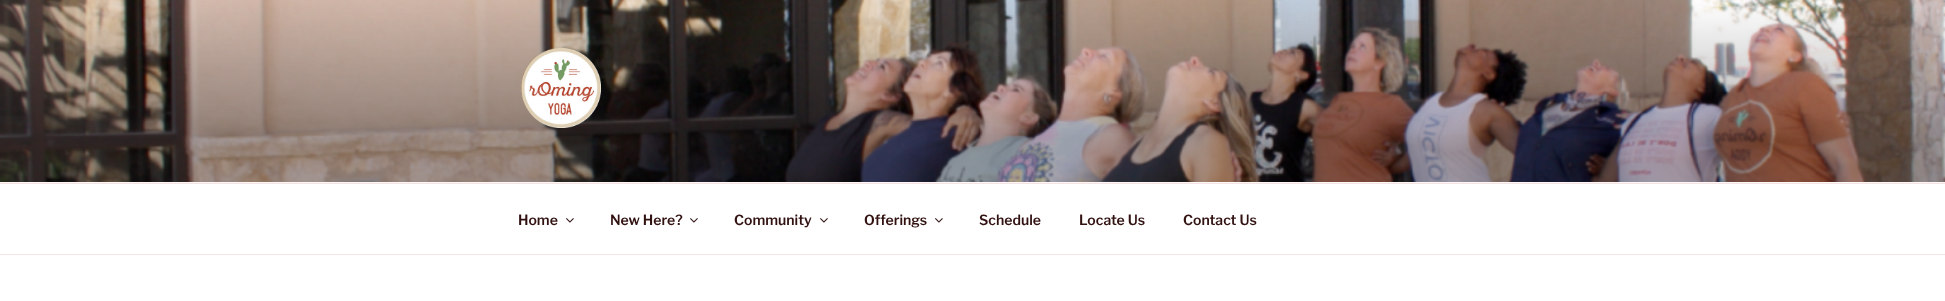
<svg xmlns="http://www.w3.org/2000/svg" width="1945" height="301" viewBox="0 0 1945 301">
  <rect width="100%" height="100%" fill="rgb(255,255,255)"/>
  <rect x="0" y="182" width="1945" height="1" fill="rgb(252,247,247)"/>
  <image x="0" y="0" width="1945" height="182" href="pic1.png"/>
  <image x="521" y="48" width="80" height="80" href="pic2.png"/>
  <rect x="0" y="183" width="1945" height="1" fill="rgb(246,228,228)"/>
  <rect x="0" y="254" width="1945" height="1" fill="rgb(246,228,228)"/>
  <text x="518" y="225" font-family="Libre Franklin" font-size="14" font-weight="100" fill="rgb(50,17,17)">Home</text>
  <image x="566" y="218" width="8" height="5" href="pic3.png"/>
  <text x="610" y="225" font-family="Libre Franklin" font-size="14" font-weight="100" fill="rgb(50,17,17)">New Here?</text>
  <image x="690" y="218" width="8" height="5" href="pic3.png"/>
  <text x="734" y="225" font-family="Libre Franklin" font-size="14" font-weight="100" fill="rgb(50,17,17)">Community</text>
  <image x="820" y="218" width="8" height="5" href="pic3.png"/>
  <text x="864" y="225" font-family="Libre Franklin" font-size="14" font-weight="100" fill="rgb(50,17,17)">Offerings</text>
  <image x="935" y="218" width="8" height="5" href="pic3.png"/>
  <g font-family="Libre Franklin" font-size="14" font-weight="100" fill="rgb(50,17,17)">
    <text x="979" y="225">Schedule</text>
    <text x="1079" y="225">Locate Us</text>
    <text x="1183" y="225">Contact Us</text>
  </g>
</svg>
